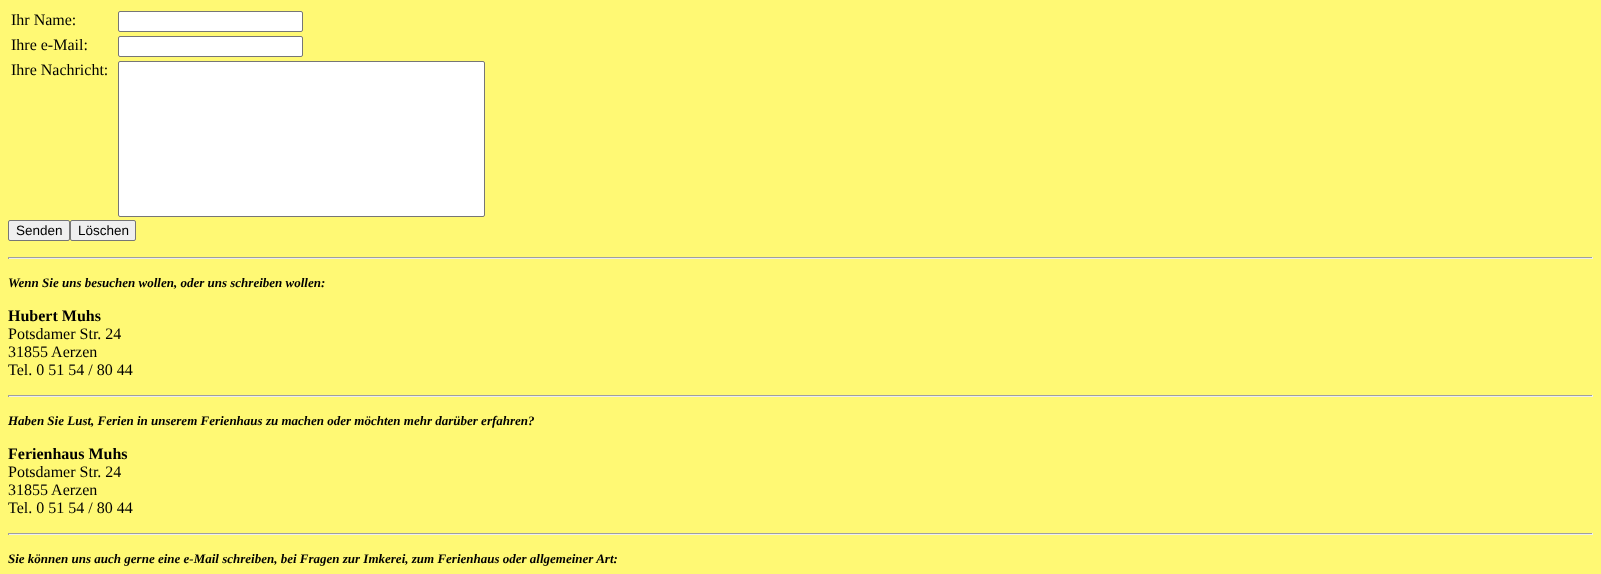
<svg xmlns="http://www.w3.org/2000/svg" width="1601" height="574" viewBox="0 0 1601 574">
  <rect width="100%" height="100%" fill="rgb(255,249,116)"/>
  <text x="11" y="25" font-family="Liberation Serif" font-size="16" fill="rgb(0,0,0)">Ihr Name:</text>
  <rect x="118.5" y="11.5" width="184" height="20" rx="1.5" fill="rgb(255,255,255)" stroke="rgb(118,118,118)"/>
  <text x="11" y="50" font-family="Liberation Serif" font-size="16" fill="rgb(0,0,0)">Ihre e-Mail:</text>
  <rect x="118.5" y="36.5" width="184" height="20" rx="1.5" fill="rgb(255,255,255)" stroke="rgb(118,118,118)"/>
  <text x="11" y="75" font-family="Liberation Serif" font-size="16" fill="rgb(0,0,0)">Ihre Nachricht:</text>
  <rect x="118.5" y="61.5" width="366" height="155" rx="1.5" fill="rgb(255,255,255)" stroke="rgb(118,118,118)"/>
  <rect x="8.5" y="220.5" width="61" height="20" rx="1.5" fill="rgb(239,239,239)" stroke="rgb(118,118,118)"/>
  <text x="16" y="235" font-family="Liberation Sans" font-size="13.5" fill="rgb(0,0,0)">Senden</text>
  <rect x="70.5" y="220.5" width="65" height="20" rx="1.5" fill="rgb(239,239,239)" stroke="rgb(118,118,118)"/>
  <text x="78" y="235" font-family="Liberation Sans" font-size="13.5" fill="rgb(0,0,0)">Löschen</text>
  <rect x="8" y="257" width="1585" height="1" fill="rgb(159,159,159)"/>
  <rect x="1592" y="257" width="1" height="2" fill="rgb(238,238,238)"/>
  <rect x="8" y="258" width="1585" height="1" fill="rgb(238,238,238)"/>
  <rect x="8" y="257" width="1" height="2" fill="rgb(159,159,159)"/>
  <text x="8" y="287" font-family="Liberation Serif" font-size="13" font-weight="bold" font-style="italic" fill="rgb(0,0,0)">Wenn Sie uns besuchen wollen, oder uns schreiben wollen:</text>
  <text x="8" y="321" font-family="Liberation Serif" font-size="16" font-weight="bold" fill="rgb(0,0,0)">Hubert Muhs</text>
  <g font-family="Liberation Serif" font-size="16" fill="rgb(0,0,0)">
    <text>
      <tspan x="8" y="339">Potsdamer Str. 24</tspan>
      <tspan x="8" y="357">31855 Aerzen</tspan>
      <tspan x="8" y="375">Tel. 0 51 54 / 80 44</tspan>
    </text>
  </g>
  <rect x="8" y="395" width="1585" height="1" fill="rgb(159,159,159)"/>
  <rect x="1592" y="395" width="1" height="2" fill="rgb(238,238,238)"/>
  <rect x="8" y="396" width="1585" height="1" fill="rgb(238,238,238)"/>
  <rect x="8" y="395" width="1" height="2" fill="rgb(159,159,159)"/>
  <text x="8" y="425" font-family="Liberation Serif" font-size="13" font-weight="bold" font-style="italic" fill="rgb(0,0,0)">Haben Sie Lust, Ferien in unserem Ferienhaus zu machen oder möchten mehr darüber erfahren?</text>
  <text x="8" y="459" font-family="Liberation Serif" font-size="16" font-weight="bold" fill="rgb(0,0,0)">Ferienhaus Muhs</text>
  <g font-family="Liberation Serif" font-size="16" fill="rgb(0,0,0)">
    <text>
      <tspan x="8" y="477">Potsdamer Str. 24</tspan>
      <tspan x="8" y="495">31855 Aerzen</tspan>
      <tspan x="8" y="513">Tel. 0 51 54 / 80 44</tspan>
    </text>
  </g>
  <rect x="8" y="533" width="1585" height="1" fill="rgb(159,159,159)"/>
  <rect x="1592" y="533" width="1" height="2" fill="rgb(238,238,238)"/>
  <rect x="8" y="534" width="1585" height="1" fill="rgb(238,238,238)"/>
  <rect x="8" y="533" width="1" height="2" fill="rgb(159,159,159)"/>
  <text x="8" y="563" font-family="Liberation Serif" font-size="13" font-weight="bold" font-style="italic" fill="rgb(0,0,0)">Sie können uns auch gerne eine e-Mail schreiben, bei Fragen zur Imkerei, zum Ferienhaus oder allgemeiner Art:</text>
</svg>
